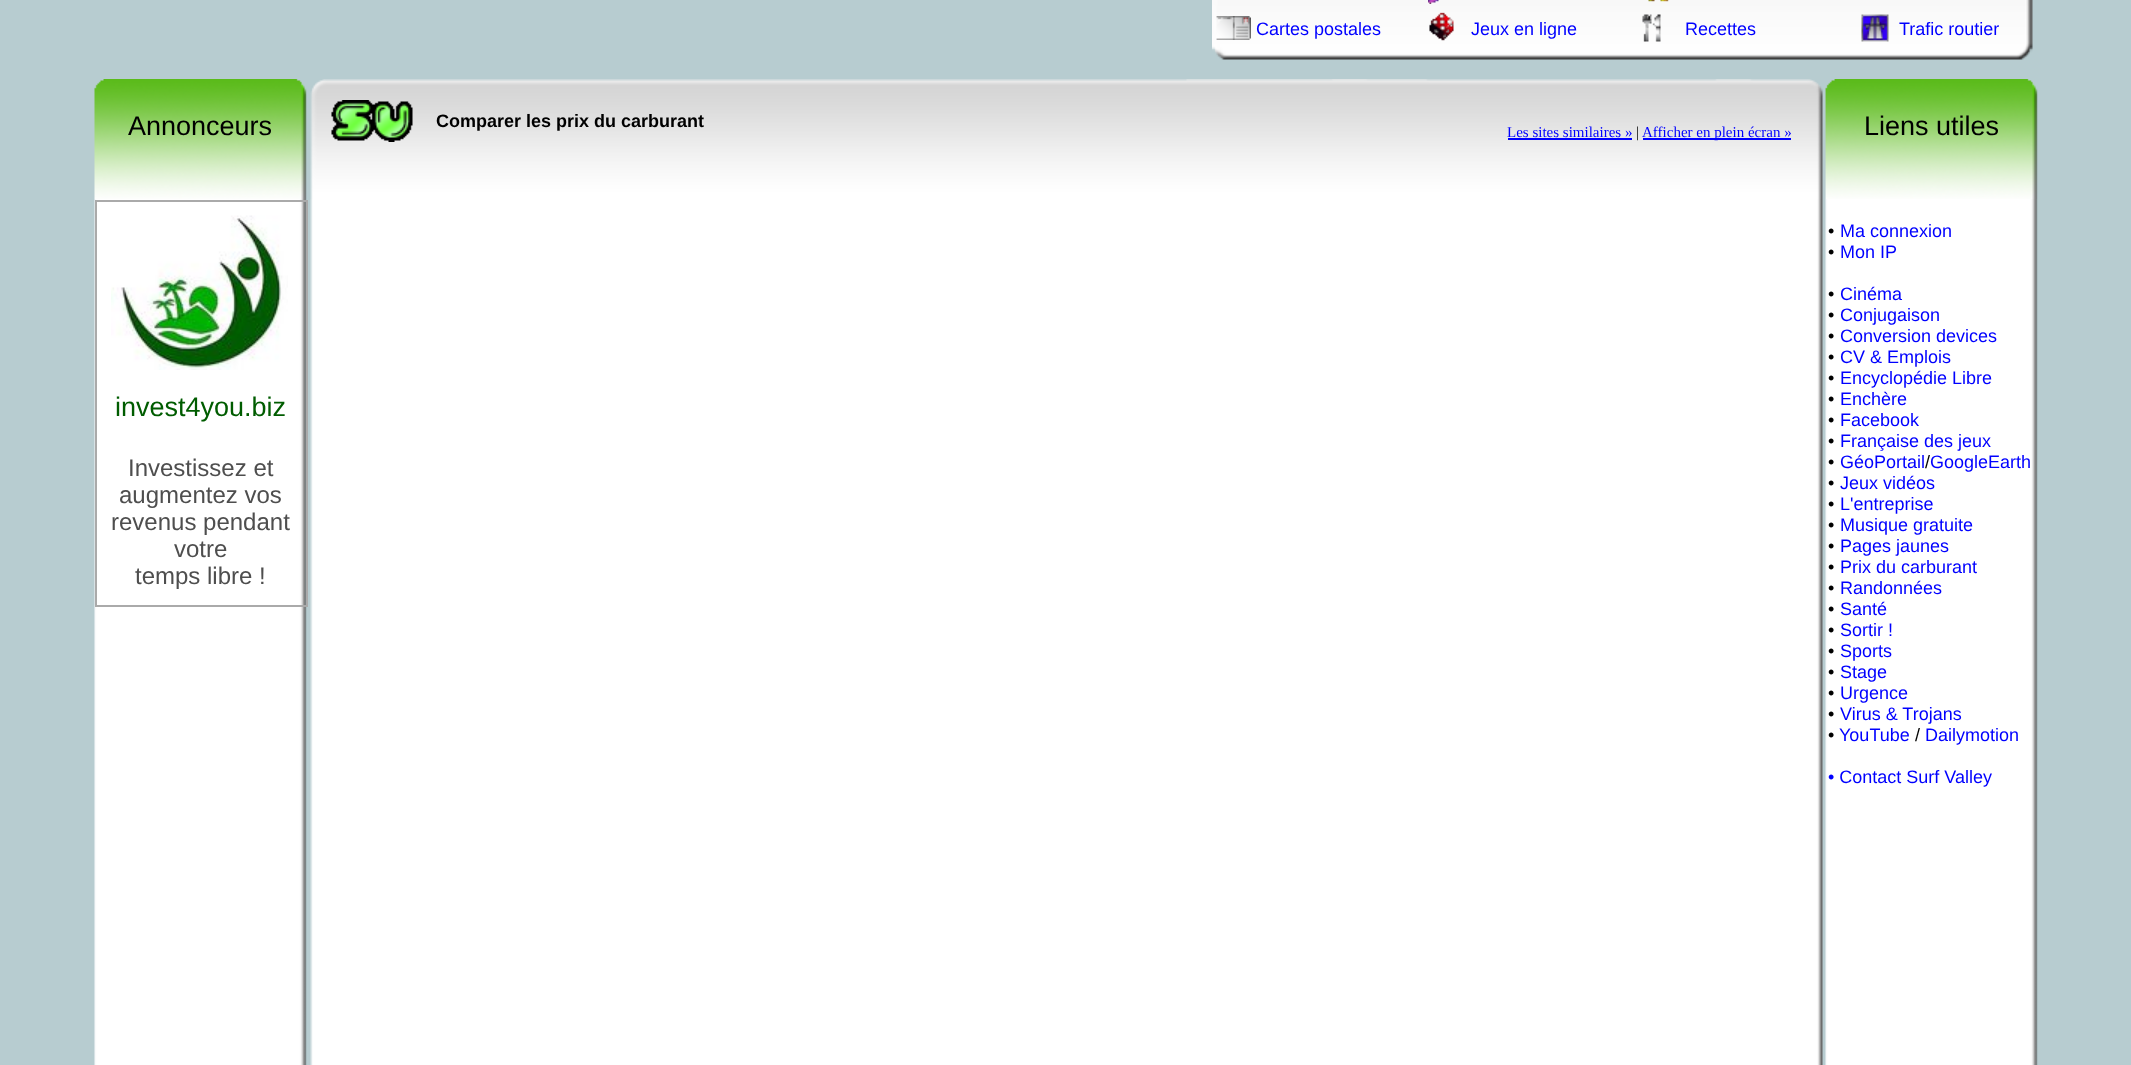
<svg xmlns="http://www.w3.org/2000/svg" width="2131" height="1065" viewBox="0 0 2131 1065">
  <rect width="100%" height="100%" fill="rgb(183,204,208)"/>
  <image x="1212" y="0" width="821" height="60" href="pic1.png"/>
  <image x="1428" y="0" width="11" height="4" href="pic2.png"/>
  <image x="1648" y="0" width="21" height="2" href="pic3.png"/>
  <image x="1216" y="16" width="35" height="24" href="pic4.png"/>
  <text x="1256" y="35" font-family="Liberation Sans" font-size="18" fill="rgb(0,0,255)">Cartes postales</text>
  <image x="1429" y="12" width="25" height="29" href="pic5.png"/>
  <text x="1471" y="35" font-family="Liberation Sans" font-size="18" fill="rgb(0,0,255)">Jeux en ligne</text>
  <image x="1642" y="14" width="19" height="28" href="pic6.png"/>
  <text x="1685" y="35" font-family="Liberation Sans" font-size="18" fill="rgb(0,0,255)">Recettes</text>
  <image x="1861" y="14" width="28" height="28" href="pic7.png"/>
  <text x="1899" y="35" font-family="Liberation Sans" font-size="18" fill="rgb(0,0,255)">Trafic routier</text>
  <image x="94" y="79" width="213" height="120" href="pic8.png"/>
  <text x="128" y="135" font-family="Liberation Sans" font-size="27" fill="rgb(0,0,0)">Annonceurs</text>
  <image x="310" y="79" width="1513" height="120" href="pic9.png"/>
  <image x="331" y="100" width="82" height="42" href="pic10.png"/>
  <text x="436" y="127" font-family="Liberation Sans" font-size="18" font-weight="bold" fill="rgb(0,0,0)">Comparer les prix du carburant</text>
  <text x="1507" y="137" font-family="Liberation Serif" font-size="15" fill="rgb(0,0,255)">Les sites similaires »</text>
  <rect x="1508" y="138" width="124" height="2" fill="rgb(0,0,255)"/>
  <text x="1636" y="137" font-family="Liberation Serif" font-size="15" fill="rgb(0,0,0)">|</text>
  <rect x="1643" y="138" width="148" height="2" fill="rgb(0,0,255)"/>
  <text x="1642" y="137" font-family="Liberation Serif" font-size="15" fill="rgb(0,0,255)">Afficher en plein écran »</text>
  <image x="1825" y="79" width="213" height="120" href="pic11.png"/>
  <text x="1864" y="135" font-family="Liberation Sans" font-size="27" fill="rgb(0,0,0)">Liens utiles</text>
  <image x="94" y="199" width="213" height="866" href="pic12.png"/>
  <rect x="95" y="200" width="213" height="2" fill="rgb(170,170,170)"/>
  <rect x="306" y="200" width="2" height="406" fill="rgb(170,170,170)"/>
  <rect x="95" y="605" width="213" height="2" fill="rgb(170,170,170)"/>
  <rect x="95" y="200" width="2" height="406" fill="rgb(170,170,170)"/>
  <image x="111" y="215" width="177" height="155" href="pic13.png"/>
  <text x="115" y="416" font-family="Liberation Sans" font-size="27" fill="rgb(0,92,0)">invest4you.biz</text>
  <g font-family="Liberation Sans" font-size="24" fill="rgb(78,78,78)">
    <text x="128" y="476">Investissez et</text>
    <text x="119" y="503">augmentez vos</text>
    <text x="111" y="530">revenus pendant</text>
    <text x="174" y="557">votre</text>
    <text x="135" y="584">temps libre !</text>
  </g>
  <image x="310" y="199" width="1513" height="866" href="pic14.png"/>
  <image x="1825" y="199" width="213" height="866" href="pic15.png"/>
  <text x="1828" y="237" font-family="Liberation Sans" font-size="18" fill="rgb(0,0,0)">•</text>
  <text x="1840" y="237" font-family="Liberation Sans" font-size="18" fill="rgb(0,0,255)">Ma connexion</text>
  <text x="1828" y="258" font-family="Liberation Sans" font-size="18" fill="rgb(0,0,0)">•</text>
  <text x="1840" y="258" font-family="Liberation Sans" font-size="18" fill="rgb(0,0,255)">Mon IP</text>
  <text x="1828" y="300" font-family="Liberation Sans" font-size="18" fill="rgb(0,0,0)">•</text>
  <text x="1840" y="300" font-family="Liberation Sans" font-size="18" fill="rgb(0,0,255)">Cinéma</text>
  <text x="1828" y="321" font-family="Liberation Sans" font-size="18" fill="rgb(0,0,0)">•</text>
  <text x="1840" y="321" font-family="Liberation Sans" font-size="18" fill="rgb(0,0,255)">Conjugaison</text>
  <text x="1828" y="342" font-family="Liberation Sans" font-size="18" fill="rgb(0,0,0)">•</text>
  <text x="1840" y="342" font-family="Liberation Sans" font-size="18" fill="rgb(0,0,255)">Conversion devices</text>
  <text x="1828" y="363" font-family="Liberation Sans" font-size="18" fill="rgb(0,0,0)">•</text>
  <text x="1840" y="363" font-family="Liberation Sans" font-size="18" fill="rgb(0,0,255)">CV &amp; Emplois</text>
  <text x="1828" y="384" font-family="Liberation Sans" font-size="18" fill="rgb(0,0,0)">•</text>
  <text x="1840" y="384" font-family="Liberation Sans" font-size="18" fill="rgb(0,0,255)">Encyclopédie Libre</text>
  <text x="1828" y="405" font-family="Liberation Sans" font-size="18" fill="rgb(0,0,0)">•</text>
  <text x="1840" y="405" font-family="Liberation Sans" font-size="18" fill="rgb(0,0,255)">Enchère</text>
  <text x="1828" y="426" font-family="Liberation Sans" font-size="18" fill="rgb(0,0,0)">•</text>
  <text x="1840" y="426" font-family="Liberation Sans" font-size="18" fill="rgb(0,0,255)">Facebook</text>
  <text x="1828" y="447" font-family="Liberation Sans" font-size="18" fill="rgb(0,0,0)">•</text>
  <g font-family="Liberation Sans" font-size="18" fill="rgb(0,0,255)">
    <text>
      <tspan x="1840" y="447">Française des jeux</tspan>
      <tspan x="1840" y="468">GéoPortail GoogleEarth</tspan>
    </text>
  </g>
  <g font-family="Liberation Sans" font-size="18" fill="rgb(0,0,0)">
    <text x="1828" y="468">•</text>
    <text x="1925" y="468">/</text>
    <text x="1828" y="489">•</text>
  </g>
  <text x="1840" y="489" font-family="Liberation Sans" font-size="18" fill="rgb(0,0,255)">Jeux vidéos</text>
  <text x="1828" y="510" font-family="Liberation Sans" font-size="18" fill="rgb(0,0,0)">•</text>
  <text x="1840" y="510" font-family="Liberation Sans" font-size="18" fill="rgb(0,0,255)">L'entreprise</text>
  <text x="1828" y="531" font-family="Liberation Sans" font-size="18" fill="rgb(0,0,0)">•</text>
  <text x="1840" y="531" font-family="Liberation Sans" font-size="18" fill="rgb(0,0,255)">Musique gratuite</text>
  <text x="1828" y="552" font-family="Liberation Sans" font-size="18" fill="rgb(0,0,0)">•</text>
  <text x="1840" y="552" font-family="Liberation Sans" font-size="18" fill="rgb(0,0,255)">Pages jaunes</text>
  <text x="1828" y="573" font-family="Liberation Sans" font-size="18" fill="rgb(0,0,0)">•</text>
  <text x="1840" y="573" font-family="Liberation Sans" font-size="18" fill="rgb(0,0,255)">Prix du carburant</text>
  <text x="1828" y="594" font-family="Liberation Sans" font-size="18" fill="rgb(0,0,0)">•</text>
  <text x="1840" y="594" font-family="Liberation Sans" font-size="18" fill="rgb(0,0,255)">Randonnées</text>
  <text x="1828" y="615" font-family="Liberation Sans" font-size="18" fill="rgb(0,0,0)">•</text>
  <text x="1840" y="615" font-family="Liberation Sans" font-size="18" fill="rgb(0,0,255)">Santé</text>
  <text x="1828" y="636" font-family="Liberation Sans" font-size="18" fill="rgb(0,0,0)">•</text>
  <text x="1840" y="636" font-family="Liberation Sans" font-size="18" fill="rgb(0,0,255)">Sortir !</text>
  <text x="1828" y="657" font-family="Liberation Sans" font-size="18" fill="rgb(0,0,0)">•</text>
  <text x="1840" y="657" font-family="Liberation Sans" font-size="18" fill="rgb(0,0,255)">Sports</text>
  <text x="1828" y="678" font-family="Liberation Sans" font-size="18" fill="rgb(0,0,0)">•</text>
  <text x="1840" y="678" font-family="Liberation Sans" font-size="18" fill="rgb(0,0,255)">Stage</text>
  <text x="1828" y="699" font-family="Liberation Sans" font-size="18" fill="rgb(0,0,0)">•</text>
  <text x="1840" y="699" font-family="Liberation Sans" font-size="18" fill="rgb(0,0,255)">Urgence</text>
  <text x="1828" y="720" font-family="Liberation Sans" font-size="18" fill="rgb(0,0,0)">•</text>
  <text x="1840" y="720" font-family="Liberation Sans" font-size="18" fill="rgb(0,0,255)">Virus &amp; Trojans</text>
  <text x="1828" y="741" font-family="Liberation Sans" font-size="18" fill="rgb(0,0,0)">•</text>
  <text x="1839" y="741" font-family="Liberation Sans" font-size="18" fill="rgb(0,0,255)">YouTube</text>
  <text x="1915" y="741" font-family="Liberation Sans" font-size="18" fill="rgb(0,0,0)">/</text>
  <g font-family="Liberation Sans" font-size="18" fill="rgb(0,0,255)">
    <text x="1925" y="741">Dailymotion</text>
    <text x="1828" y="783">• Contact Surf Valley</text>
  </g>
</svg>
